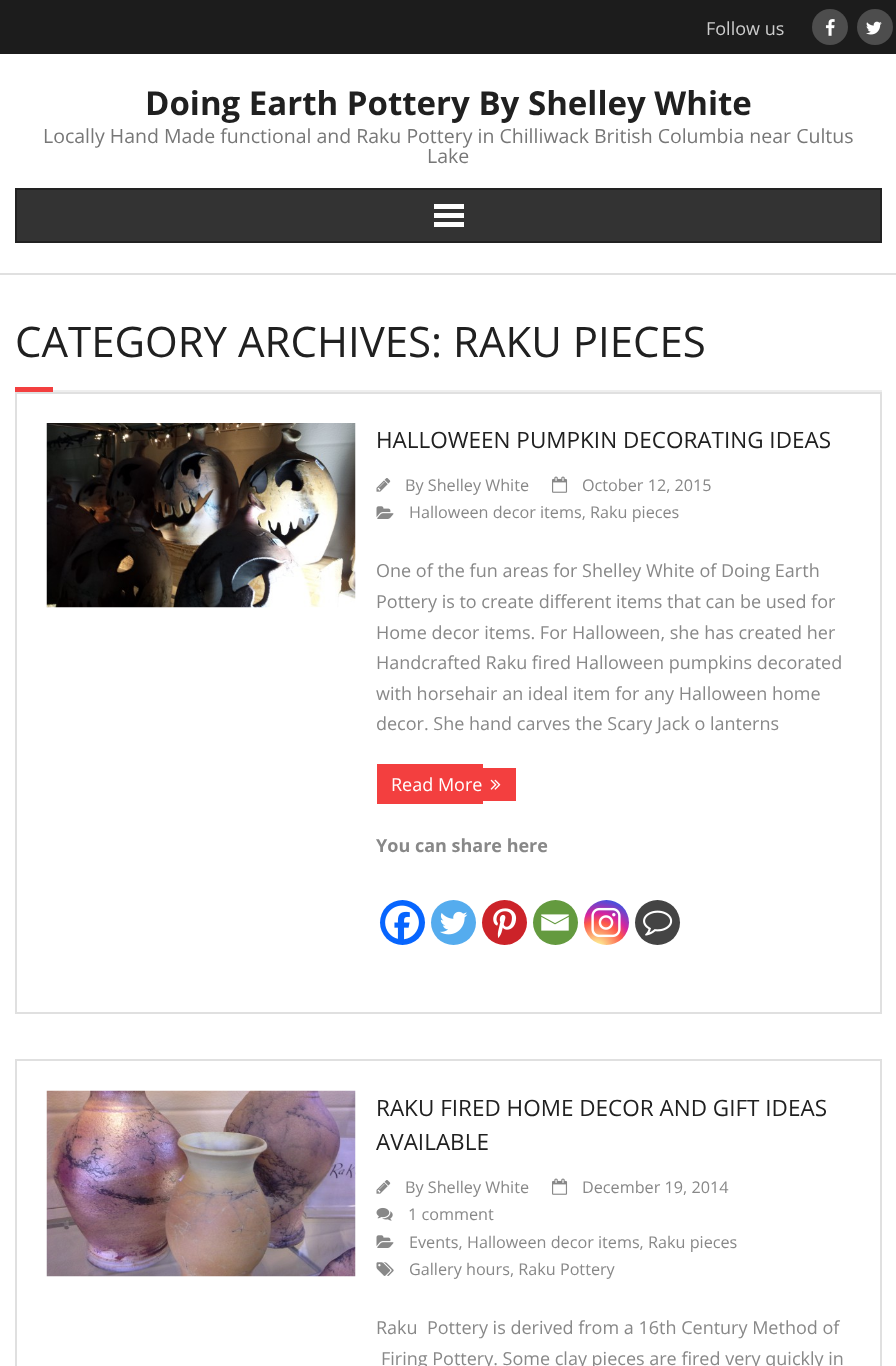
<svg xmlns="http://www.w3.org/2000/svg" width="896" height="1366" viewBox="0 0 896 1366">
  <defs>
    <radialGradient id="g1" gradientUnits="userSpaceOnUse" cx="597" cy="948" r="58"><stop offset="0" stop-color="rgb(253,244,151)"/><stop offset="0.05" stop-color="rgb(253,244,151)"/><stop offset="0.45" stop-color="rgb(253,89,73)"/><stop offset="0.6" stop-color="rgb(214,36,159)"/><stop offset="0.9" stop-color="rgb(40,90,235)"/></radialGradient>
  </defs>
  <rect width="100%" height="100%" fill="rgb(255,255,255)"/>
  <rect x="0" y="0" width="896" height="54" fill="rgb(28,28,28)"/>
  <text x="706" y="35" font-family="Open Sans" font-size="18" fill="rgb(204,204,204)">Follow us</text>
  <circle cx="830" cy="27" r="18" fill="rgb(77,77,77)"/>
  <image x="825" y="19" width="10" height="17" href="pic1.png"/>
  <circle cx="875" cy="27" r="18" fill="rgb(77,77,77)"/>
  <image x="866" y="21" width="16" height="14" href="pic2.png"/>
  <rect x="0" y="273" width="896" height="2" fill="rgb(224,224,224)"/>
  <text x="145" y="115" font-family="Open Sans" font-size="33" font-weight="bold" fill="rgb(32,32,32)">Doing Earth Pottery By Shelley White</text>
  <g font-family="Open Sans" font-size="19.5" fill="rgb(119,119,119)">
    <text x="43" y="143">Locally Hand Made functional and Raku Pottery in Chilliwack British Columbia near Cultus</text>
    <text x="427" y="163">Lake</text>
  </g>
  <rect x="16" y="189" width="865" height="53" fill="rgb(51,51,51)" stroke="rgb(34,34,34)" stroke-width="2"/>
  <rect x="434" y="204" width="30" height="5" fill="rgb(255,255,255)"/>
  <rect x="434" y="213" width="30" height="5" fill="rgb(255,255,255)"/>
  <rect x="434" y="222" width="30" height="5" fill="rgb(255,255,255)"/>
  <text x="15" y="357" font-family="Open Sans" font-size="42" fill="rgb(32,32,32)">CATEGORY ARCHIVES: RAKU PIECES</text>
  <rect x="15" y="387" width="38" height="5" fill="rgb(243,63,63)"/>
  <rect x="53" y="390" width="829" height="2" fill="rgb(238,238,238)"/>
  <rect x="16" y="393" width="865" height="620" fill="none" stroke="rgb(224,224,224)" stroke-width="2"/>
  <image x="46" y="423" width="310" height="185" href="pic3.png"/>
  <text x="376" y="448" font-family="Open Sans" font-size="22.5" fill="rgb(32,32,32)">HALLOWEEN PUMPKIN DECORATING IDEAS</text>
  <image x="376" y="478" width="15" height="14" href="pic4.png"/>
  <text x="405" y="491" font-family="Open Sans" font-size="16.2" fill="rgb(136,136,136)">By Shelley White</text>
  <image x="552" y="476" width="16" height="17" href="pic5.png"/>
  <text x="582" y="491" font-family="Open Sans" font-size="16.2" fill="rgb(136,136,136)">October 12, 2015</text>
  <image x="376" y="506" width="18" height="13" href="pic6.png"/>
  <text x="409" y="518" font-family="Open Sans" font-size="16.2" fill="rgb(136,136,136)">Halloween decor items, Raku pieces</text>
  <g font-family="Open Sans" font-size="18" fill="rgb(136,136,136)">
    <text>
      <tspan x="376" y="577">One of the fun areas for Shelley White of Doing Earth</tspan>
      <tspan x="376" y="608">Pottery is to create different items that can be used for</tspan>
      <tspan x="376" y="639">Home decor items. For Halloween, she has created her</tspan>
      <tspan x="376" y="669">Handcrafted Raku fired Halloween pumpkins decorated</tspan>
      <tspan x="376" y="700">with horsehair an ideal item for any Halloween home</tspan>
      <tspan x="376" y="730">decor. She hand carves the Scary Jack o lanterns</tspan>
    </text>
  </g>
  <rect x="377" y="764" width="106" height="40" fill="rgb(243,63,63)"/>
  <text x="391" y="791" font-family="Open Sans" font-size="18" fill="rgb(255,255,255)">Read More</text>
  <rect x="483" y="768" width="33" height="33" fill="rgb(243,63,63)"/>
  <image x="490" y="779" width="11" height="11" href="pic7.png"/>
  <text x="376" y="852" font-family="Open Sans" font-size="18" font-weight="bold" fill="rgb(136,136,136)">You can share here</text>
  <circle cx="402.5" cy="922.5" r="22.5" fill="rgb(7,101,254)"/>
  <image x="385" y="905" width="34" height="35" href="pic8.png"/>
  <circle cx="453.5" cy="922.5" r="22.5" fill="rgb(85,172,238)"/>
  <image x="440" y="911" width="28" height="24" href="pic9.png"/>
  <circle cx="504.5" cy="922.5" r="22.5" fill="rgb(204,35,41)"/>
  <image x="493" y="908" width="24" height="30" href="pic10.png"/>
  <circle cx="555.5" cy="922.5" r="22.5" fill="rgb(100,154,63)"/>
  <image x="541" y="914" width="28" height="17" href="pic11.png"/>
  <circle cx="606.5" cy="922.5" r="22.5" fill="url(#g1)"/>
  <image x="591" y="907" width="30" height="31" href="pic12.png"/>
  <circle cx="657.5" cy="922.5" r="22.5" fill="rgb(68,68,68)"/>
  <image x="643" y="910" width="30" height="26" href="pic13.png"/>
  <rect x="16" y="1060" width="865" height="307" fill="none" stroke="rgb(224,224,224)" stroke-width="2"/>
  <image x="46" y="1090" width="310" height="187" href="pic14.png"/>
  <g font-family="Open Sans" font-size="22.5" fill="rgb(32,32,32)">
    <text>
      <tspan x="376" y="1116">RAKU FIRED HOME DECOR AND GIFT IDEAS</tspan>
      <tspan x="376" y="1150">AVAILABLE</tspan>
    </text>
  </g>
  <image x="376" y="1180" width="15" height="14" href="pic4.png"/>
  <text x="405" y="1193" font-family="Open Sans" font-size="16.2" fill="rgb(136,136,136)">By Shelley White</text>
  <image x="552" y="1178" width="16" height="17" href="pic5.png"/>
  <text x="582" y="1193" font-family="Open Sans" font-size="16.2" fill="rgb(136,136,136)">December 19, 2014</text>
  <image x="376" y="1207" width="17" height="14" href="pic15.png"/>
  <text x="408" y="1220" font-family="Open Sans" font-size="16.2" fill="rgb(136,136,136)">1 comment</text>
  <image x="376" y="1235" width="18" height="13" href="pic6.png"/>
  <text x="409" y="1248" font-family="Open Sans" font-size="16.2" fill="rgb(136,136,136)">Events, Halloween decor items, Raku pieces</text>
  <image x="376" y="1262" width="18" height="14" href="pic16.png"/>
  <text x="409" y="1275" font-family="Open Sans" font-size="16.2" fill="rgb(136,136,136)">Gallery hours, Raku Pottery</text>
  <g font-family="Open Sans" font-size="18" fill="rgb(136,136,136)">
    <text x="376" y="1334" xml:space="preserve">Raku  Pottery is derived from a 16th Century Method of</text>
    <text x="381" y="1365">Firing Pottery. Some clay pieces are fired very quickly in</text>
  </g>
</svg>
